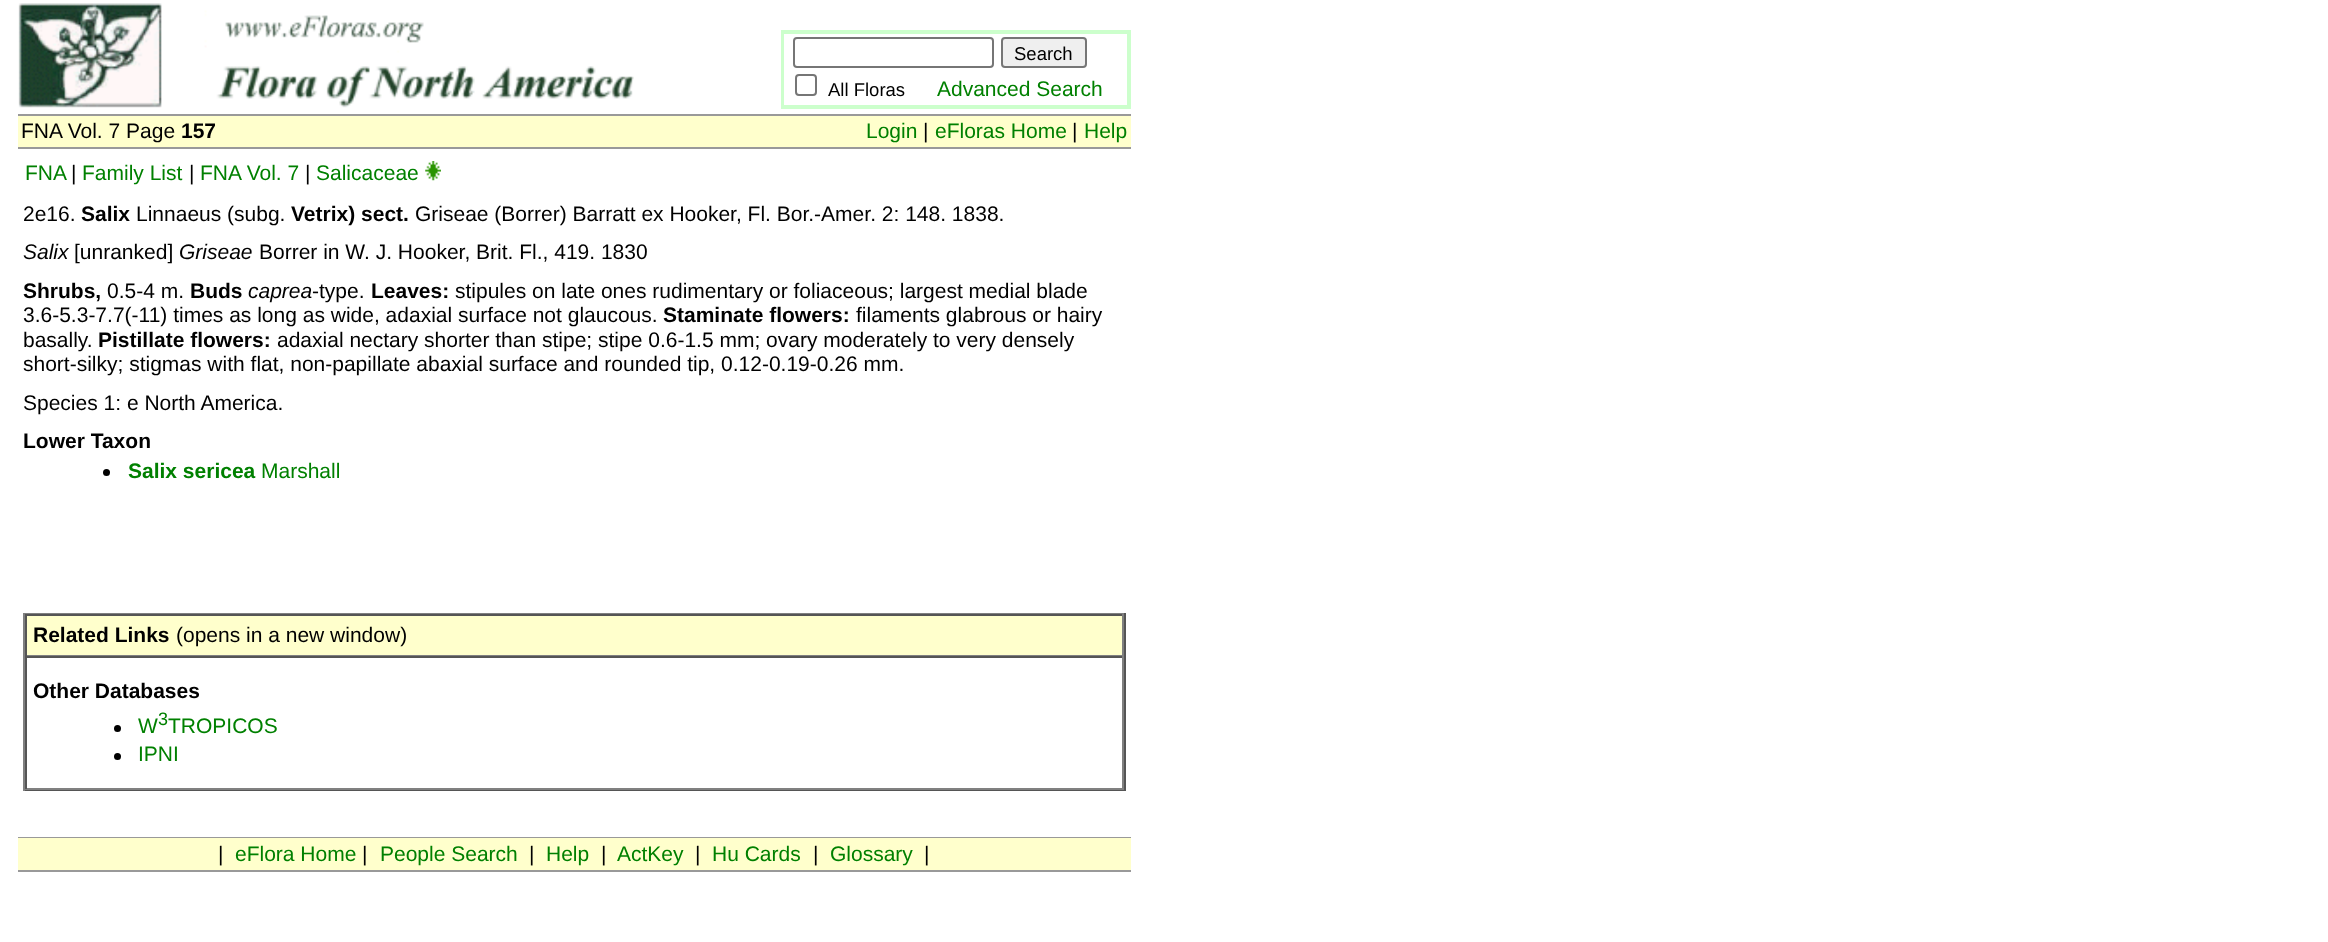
<svg xmlns="http://www.w3.org/2000/svg" width="2328" height="942" viewBox="0 0 2328 942">
  <rect width="100%" height="100%" fill="rgb(255,255,255)"/>
  <image x="18" y="3" width="616" height="105" href="pic1.png"/>
  <rect x="782" y="31" width="348" height="77" fill="none" stroke="rgb(204,255,204)" stroke-width="2"/>
  <rect x="783" y="33" width="345" height="73" fill="none" stroke="rgb(204,255,204)" stroke-width="2"/>
  <rect x="794" y="38" width="199" height="29" rx="3" fill="none" stroke="rgb(118,118,118)" stroke-width="2"/>
  <rect x="1002" y="38" width="84" height="29" rx="3" fill="rgb(239,239,239)" stroke="rgb(118,118,118)" stroke-width="2"/>
  <text x="1014" y="60" font-family="Liberation Sans" font-size="18.5" fill="rgb(0,0,0)">Search</text>
  <rect x="796" y="75" width="20" height="20" rx="3" fill="none" stroke="rgb(118,118,118)" stroke-width="2"/>
  <text x="828" y="96" font-family="Liberation Sans" font-size="18.5" fill="rgb(0,0,0)">All Floras</text>
  <text x="937" y="96" font-family="Liberation Sans" font-size="21" fill="rgb(0,128,0)">Advanced Search</text>
  <rect x="18" y="114" width="1113" height="2" fill="rgb(153,153,153)"/>
  <rect x="18" y="116" width="1113" height="31" fill="rgb(255,255,204)"/>
  <text x="21" y="138" font-family="Liberation Sans" font-size="21" fill="rgb(0,0,0)">FNA Vol. 7 Page</text>
  <text x="181" y="138" font-family="Liberation Sans" font-size="21" font-weight="bold" fill="rgb(0,0,0)">157</text>
  <text x="866" y="138" font-family="Liberation Sans" font-size="21" fill="rgb(0,128,0)">Login</text>
  <text x="923" y="138" font-family="Liberation Sans" font-size="21" fill="rgb(0,0,0)">|</text>
  <text x="935" y="138" font-family="Liberation Sans" font-size="21" fill="rgb(0,128,0)">eFloras Home</text>
  <text x="1072" y="138" font-family="Liberation Sans" font-size="21" fill="rgb(0,0,0)">|</text>
  <text x="1084" y="138" font-family="Liberation Sans" font-size="21" fill="rgb(0,128,0)">Help</text>
  <rect x="18" y="147" width="1113" height="2" fill="rgb(153,153,153)"/>
  <text x="25" y="180" font-family="Liberation Sans" font-size="21" fill="rgb(0,128,0)">FNA</text>
  <text x="71" y="180" font-family="Liberation Sans" font-size="21" fill="rgb(0,0,0)">|</text>
  <text x="82" y="180" font-family="Liberation Sans" font-size="21" fill="rgb(0,128,0)">Family List</text>
  <text x="189" y="180" font-family="Liberation Sans" font-size="21" fill="rgb(0,0,0)">|</text>
  <text x="200" y="180" font-family="Liberation Sans" font-size="21" fill="rgb(0,128,0)">FNA Vol. 7</text>
  <text x="305" y="180" font-family="Liberation Sans" font-size="21" fill="rgb(0,0,0)">|</text>
  <text x="316" y="180" font-family="Liberation Sans" font-size="21" fill="rgb(0,128,0)">Salicaceae</text>
  <image x="425" y="161" width="16" height="20" href="pic2.png"/>
  <text x="23" y="221" font-family="Liberation Sans" font-size="21" fill="rgb(0,0,0)">2e16.</text>
  <text x="81" y="221" font-family="Liberation Sans" font-size="21" font-weight="bold" fill="rgb(0,0,0)">Salix</text>
  <text x="136" y="221" font-family="Liberation Sans" font-size="21" fill="rgb(0,0,0)">Linnaeus (subg.</text>
  <text x="291" y="221" font-family="Liberation Sans" font-size="21" font-weight="bold" fill="rgb(0,0,0)">Vetrix) sect.</text>
  <text x="415" y="221" font-family="Liberation Sans" font-size="21" fill="rgb(0,0,0)">Griseae (Borrer) Barratt ex Hooker, Fl. Bor.-Amer. 2: 148. 1838.</text>
  <text x="23" y="259" font-family="Liberation Sans" font-size="21" font-style="italic" fill="rgb(0,0,0)">Salix</text>
  <text x="74" y="259" font-family="Liberation Sans" font-size="21" fill="rgb(0,0,0)">[unranked]</text>
  <text x="179" y="259" font-family="Liberation Sans" font-size="21" font-style="italic" fill="rgb(0,0,0)">Griseae</text>
  <text x="259" y="259" font-family="Liberation Sans" font-size="21" fill="rgb(0,0,0)">Borrer in W. J. Hooker, Brit. Fl., 419. 1830</text>
  <text x="23" y="298" font-family="Liberation Sans" font-size="21" font-weight="bold" fill="rgb(0,0,0)">Shrubs,</text>
  <text x="107" y="298" font-family="Liberation Sans" font-size="21" fill="rgb(0,0,0)">0.5-4 m.</text>
  <text x="190" y="298" font-family="Liberation Sans" font-size="21" font-weight="bold" fill="rgb(0,0,0)">Buds</text>
  <text x="248" y="298" font-family="Liberation Sans" font-size="21" font-style="italic" fill="rgb(0,0,0)">caprea</text>
  <text x="312" y="298" font-family="Liberation Sans" font-size="21" fill="rgb(0,0,0)">-type.</text>
  <text x="371" y="298" font-family="Liberation Sans" font-size="21" font-weight="bold" fill="rgb(0,0,0)">Leaves:</text>
  <g font-family="Liberation Sans" font-size="21" fill="rgb(0,0,0)">
    <text x="455" y="298">stipules on late ones rudimentary or foliaceous; largest medial blade</text>
    <text x="23" y="322">3.6-5.3-7.7(-11) times as long as wide, adaxial surface not glaucous.</text>
  </g>
  <text x="663" y="322" font-family="Liberation Sans" font-size="21" font-weight="bold" fill="rgb(0,0,0)">Staminate flowers:</text>
  <g font-family="Liberation Sans" font-size="21" fill="rgb(0,0,0)">
    <text x="856" y="322">filaments glabrous or hairy</text>
    <text x="23" y="347">basally.</text>
  </g>
  <text x="98" y="347" font-family="Liberation Sans" font-size="21" font-weight="bold" fill="rgb(0,0,0)">Pistillate flowers:</text>
  <g font-family="Liberation Sans" font-size="21" fill="rgb(0,0,0)">
    <text x="277" y="347">adaxial nectary shorter than stipe; stipe 0.6-1.5 mm; ovary moderately to very densely</text>
    <text>
      <tspan x="23" y="371">short-silky; stigmas with flat, non-papillate abaxial surface and rounded tip, 0.12-0.19-0.26 mm.</tspan>
      <tspan x="23" y="410">Species 1: e North America.</tspan>
    </text>
  </g>
  <text x="23" y="448" font-family="Liberation Sans" font-size="21" font-weight="bold" fill="rgb(0,0,0)">Lower Taxon</text>
  <circle cx="106.5" cy="472.5" r="3.5" fill="rgb(0,0,0)"/>
  <text x="128" y="478" font-family="Liberation Sans" font-size="21" font-weight="bold" fill="rgb(0,128,0)">Salix sericea</text>
  <text x="261" y="478" font-family="Liberation Sans" font-size="21" fill="rgb(0,128,0)">Marshall</text>
  <rect x="23" y="613" width="1102" height="1" fill="rgb(128,128,128)"/>
  <rect x="1124" y="613" width="2" height="178" fill="rgb(85,85,85)"/>
  <rect x="23" y="789" width="1102" height="2" fill="rgb(85,85,85)"/>
  <rect x="23" y="613" width="2" height="178" fill="rgb(128,128,128)"/>
  <rect x="27" y="616" width="1095" height="39" fill="rgb(255,255,204)"/>
  <rect x="25" y="614" width="1099" height="2" fill="rgb(85,85,85)"/>
  <rect x="1122" y="614" width="2" height="42" fill="rgb(128,128,128)"/>
  <rect x="25" y="655" width="1099" height="1" fill="rgb(128,128,128)"/>
  <rect x="25" y="614" width="2" height="42" fill="rgb(85,85,85)"/>
  <text x="33" y="642" font-family="Liberation Sans" font-size="21" font-weight="bold" fill="rgb(0,0,0)">Related Links</text>
  <text x="176" y="642" font-family="Liberation Sans" font-size="21" fill="rgb(0,0,0)">(opens in a new window)</text>
  <rect x="25" y="656" width="1099" height="2" fill="rgb(85,85,85)"/>
  <rect x="1122" y="656" width="2" height="133" fill="rgb(128,128,128)"/>
  <rect x="25" y="788" width="1099" height="2" fill="rgb(128,128,128)"/>
  <rect x="25" y="656" width="2" height="133" fill="rgb(85,85,85)"/>
  <text x="33" y="698" font-family="Liberation Sans" font-size="21" font-weight="bold" fill="rgb(0,0,0)">Other Databases</text>
  <circle cx="117.5" cy="728.5" r="3.5" fill="rgb(0,0,0)"/>
  <text x="138" y="733" font-family="Liberation Sans" font-size="21" fill="rgb(0,128,0)">W</text>
  <text x="158" y="725" font-family="Liberation Sans" font-size="18" fill="rgb(0,128,0)">3</text>
  <text x="168" y="733" font-family="Liberation Sans" font-size="21" fill="rgb(0,128,0)">TROPICOS</text>
  <circle cx="117.5" cy="756.5" r="3.5" fill="rgb(0,0,0)"/>
  <text x="138" y="761" font-family="Liberation Sans" font-size="21" fill="rgb(0,128,0)">IPNI</text>
  <rect x="18" y="837" width="1113" height="1" fill="rgb(153,153,153)"/>
  <rect x="18" y="838" width="1113" height="32" fill="rgb(255,255,204)"/>
  <text x="218" y="861" font-family="Liberation Sans" font-size="21" fill="rgb(0,0,0)">|</text>
  <text x="235" y="861" font-family="Liberation Sans" font-size="21" fill="rgb(0,128,0)">eFlora Home</text>
  <text x="362" y="861" font-family="Liberation Sans" font-size="21" fill="rgb(0,0,0)">|</text>
  <text x="380" y="861" font-family="Liberation Sans" font-size="21" fill="rgb(0,128,0)">People Search</text>
  <text x="529" y="861" font-family="Liberation Sans" font-size="21" fill="rgb(0,0,0)">|</text>
  <text x="546" y="861" font-family="Liberation Sans" font-size="21" fill="rgb(0,128,0)">Help</text>
  <text x="601" y="861" font-family="Liberation Sans" font-size="21" fill="rgb(0,0,0)">|</text>
  <text x="617" y="861" font-family="Liberation Sans" font-size="21" fill="rgb(0,128,0)">ActKey</text>
  <text x="695" y="861" font-family="Liberation Sans" font-size="21" fill="rgb(0,0,0)">|</text>
  <text x="712" y="861" font-family="Liberation Sans" font-size="21" fill="rgb(0,128,0)">Hu Cards</text>
  <text x="813" y="861" font-family="Liberation Sans" font-size="21" fill="rgb(0,0,0)">|</text>
  <text x="830" y="861" font-family="Liberation Sans" font-size="21" fill="rgb(0,128,0)">Glossary</text>
  <text x="924" y="861" font-family="Liberation Sans" font-size="21" fill="rgb(0,0,0)">|</text>
  <rect x="18" y="870" width="1113" height="2" fill="rgb(153,153,153)"/>
</svg>
